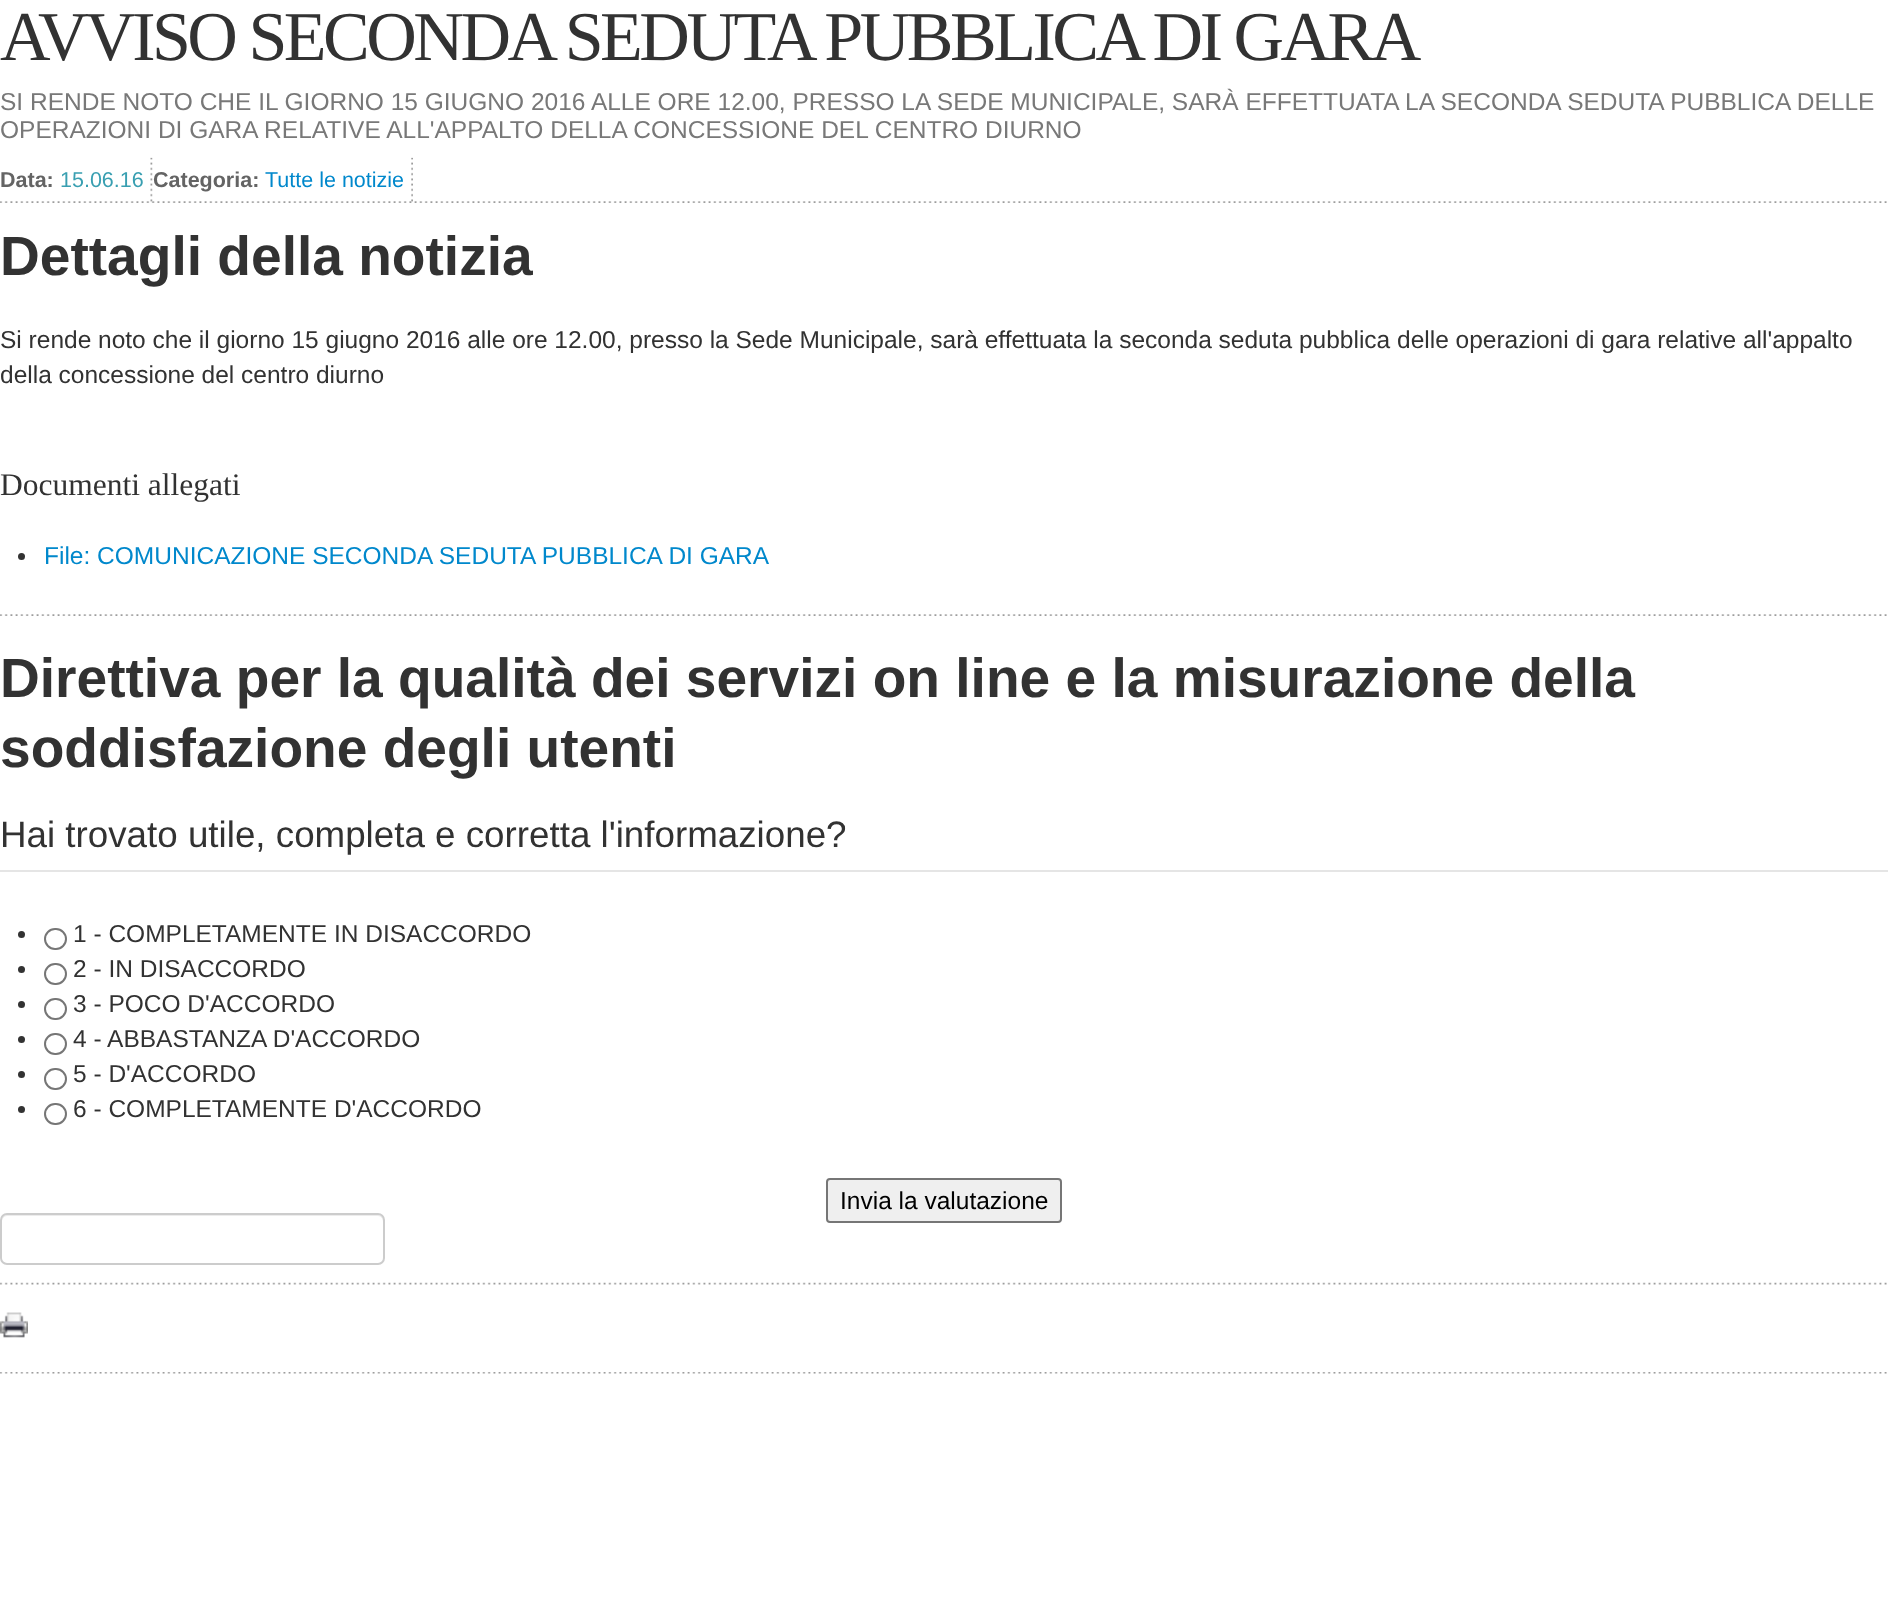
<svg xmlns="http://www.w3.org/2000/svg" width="1888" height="1597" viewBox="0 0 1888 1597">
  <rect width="100%" height="100%" fill="rgb(255,255,255)"/>
  <text x="0" y="60" font-family="Liberation Serif" font-size="70" letter-spacing="-3.5" fill="rgb(50,50,50)">AVVISO SECONDA SEDUTA PUBBLICA DI GARA</text>
  <g font-family="Liberation Sans" font-size="24.5" fill="rgb(120,120,120)">
    <text>
      <tspan x="0" y="110">SI RENDE NOTO CHE IL GIORNO 15 GIUGNO 2016 ALLE ORE 12.00, PRESSO LA SEDE MUNICIPALE, SARÀ EFFETTUATA LA SECONDA SEDUTA PUBBLICA DELLE</tspan>
      <tspan x="0" y="138">OPERAZIONI DI GARA RELATIVE ALL'APPALTO DELLA CONCESSIONE DEL CENTRO DIURNO</tspan>
    </text>
  </g>
  <image x="0" y="201" width="1887" height="2" href="pic1.png"/>
  <image x="150" y="157" width="3" height="45" href="pic2.png"/>
  <text x="0" y="187" font-family="Liberation Sans" font-size="21.5" font-weight="bold" fill="rgb(100,100,100)">Data:</text>
  <text x="60" y="187" font-family="Liberation Sans" font-size="21.5" fill="rgb(57,159,177)">15.06.16</text>
  <image x="411" y="157" width="2" height="45" href="pic3.png"/>
  <text x="153" y="187" font-family="Liberation Sans" font-size="21.5" font-weight="bold" fill="rgb(100,100,100)">Categoria:</text>
  <text x="265" y="187" font-family="Liberation Sans" font-size="21.5" fill="rgb(0,136,204)">Tutte le notizie</text>
  <text x="0" y="275" font-family="Liberation Sans" font-size="55.1" font-weight="bold" fill="rgb(50,50,50)">Dettagli della notizia</text>
  <g font-family="Liberation Sans" font-size="24.5" fill="rgb(50,50,50)">
    <text>
      <tspan x="0" y="348">Si rende noto che il giorno 15 giugno 2016 alle ore 12.00, presso la Sede Municipale, sarà effettuata la seconda seduta pubblica delle operazioni di gara relative all'appalto</tspan>
      <tspan x="0" y="383">della concessione del centro diurno</tspan>
    </text>
  </g>
  <image x="0" y="614" width="1887" height="2" href="pic1.png"/>
  <text x="0" y="495" font-family="Liberation Serif" font-size="31.5" fill="rgb(50,50,50)">Documenti allegati</text>
  <circle cx="21.5" cy="556.5" r="3.5" fill="rgb(51,51,51)"/>
  <text x="44" y="564" font-family="Liberation Sans" font-size="24.5" fill="rgb(0,136,204)">File: COMUNICAZIONE SECONDA SEDUTA PUBBLICA DI GARA</text>
  <image x="0" y="1282" width="1887" height="3" href="pic4.png"/>
  <g font-family="Liberation Sans" font-size="55.1" font-weight="bold" fill="rgb(50,50,50)">
    <text>
      <tspan x="0" y="697">Direttiva per la qualità dei servizi on line e la misurazione della</tspan>
      <tspan x="0" y="767">soddisfazione degli utenti</tspan>
    </text>
  </g>
  <rect x="0" y="870" width="1888" height="2" fill="rgb(229,229,229)"/>
  <text x="0" y="847" font-family="Liberation Sans" font-size="36.75" fill="rgb(50,50,50)">Hai trovato utile, completa e corretta l'informazione?</text>
  <circle cx="21.5" cy="934.5" r="3.5" fill="rgb(51,51,51)"/>
  <rect x="45" y="929" width="21" height="20" rx="10" fill="none" stroke="rgb(118,118,118)" stroke-width="2"/>
  <text x="73" y="942" font-family="Liberation Sans" font-size="24.5" fill="rgb(50,50,50)">1 - COMPLETAMENTE IN DISACCORDO</text>
  <circle cx="21.5" cy="969.5" r="3.5" fill="rgb(51,51,51)"/>
  <rect x="45" y="964" width="21" height="20" rx="10" fill="none" stroke="rgb(118,118,118)" stroke-width="2"/>
  <text x="73" y="977" font-family="Liberation Sans" font-size="24.5" fill="rgb(50,50,50)">2 - IN DISACCORDO</text>
  <circle cx="21.5" cy="1004.5" r="3.5" fill="rgb(51,51,51)"/>
  <rect x="45" y="999" width="21" height="20" rx="10" fill="none" stroke="rgb(118,118,118)" stroke-width="2"/>
  <text x="73" y="1012" font-family="Liberation Sans" font-size="24.5" fill="rgb(50,50,50)">3 - POCO D'ACCORDO</text>
  <circle cx="21.5" cy="1039.5" r="3.5" fill="rgb(51,51,51)"/>
  <rect x="45" y="1034" width="21" height="20" rx="10" fill="none" stroke="rgb(118,118,118)" stroke-width="2"/>
  <text x="73" y="1047" font-family="Liberation Sans" font-size="24.5" fill="rgb(50,50,50)">4 - ABBASTANZA D'ACCORDO</text>
  <circle cx="21.5" cy="1074.5" r="3.5" fill="rgb(51,51,51)"/>
  <rect x="45" y="1069" width="21" height="20" rx="10" fill="none" stroke="rgb(118,118,118)" stroke-width="2"/>
  <text x="73" y="1082" font-family="Liberation Sans" font-size="24.5" fill="rgb(50,50,50)">5 - D'ACCORDO</text>
  <circle cx="21.5" cy="1109.5" r="3.5" fill="rgb(51,51,51)"/>
  <rect x="45" y="1104" width="21" height="20" rx="10" fill="none" stroke="rgb(118,118,118)" stroke-width="2"/>
  <text x="73" y="1117" font-family="Liberation Sans" font-size="24.5" fill="rgb(50,50,50)">6 - COMPLETAMENTE D'ACCORDO</text>
  <rect x="827" y="1179" width="234" height="43" rx="3" fill="rgb(239,239,239)" stroke="rgb(118,118,118)" stroke-width="2"/>
  <text x="840" y="1209" font-family="Liberation Sans" font-size="24.5" fill="rgb(0,0,0)">Invia la valutazione</text>
  <path d="M7 1216H378C381 1216 383 1219 383 1222V1220C383 1217 381 1215 378 1215H7C4 1215 2 1217 2 1220V1222C2 1219 4 1216 7 1216Z" fill="rgb(236,236,236)"/>
  <rect x="1" y="1214" width="383" height="50" rx="6" fill="none" stroke="rgb(204,204,204)" stroke-width="2"/>
  <image x="0" y="1372" width="1887" height="2" href="pic5.png"/>
  <image x="0" y="1312" width="28" height="26" href="pic6.png"/>
</svg>
